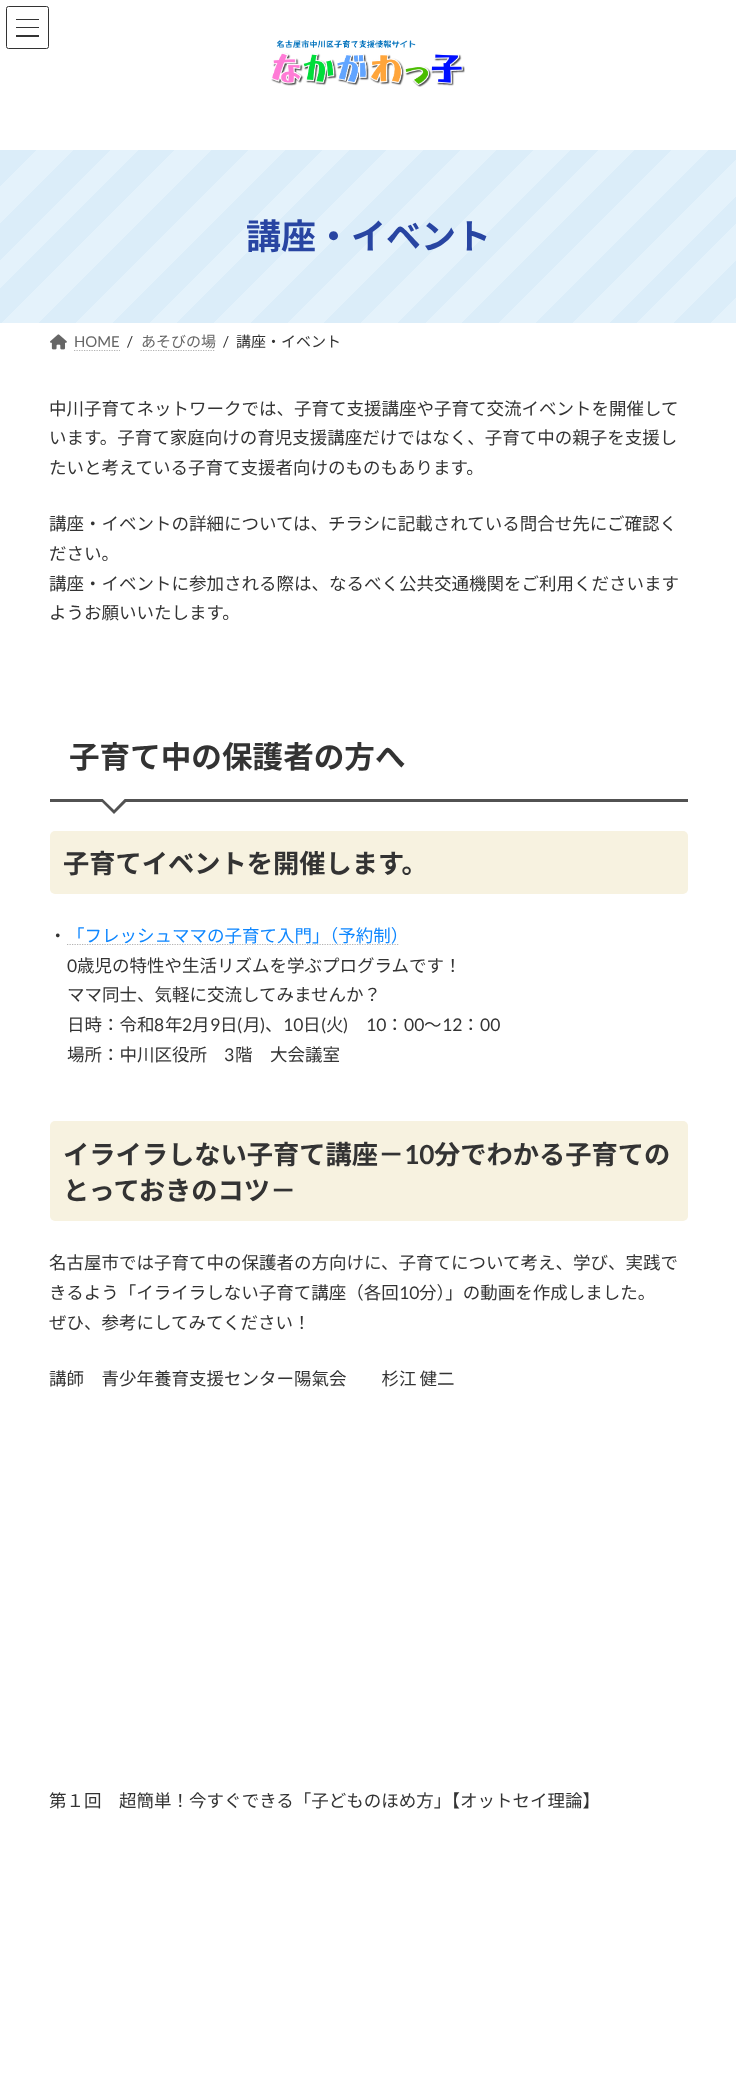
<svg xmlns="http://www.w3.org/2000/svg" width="736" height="2075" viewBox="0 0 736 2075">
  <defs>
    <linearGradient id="g1" gradientUnits="userSpaceOnUse" x1="141" y1="9" x2="601" y2="469"><stop offset="0" stop-color="rgb(219,237,249)"/><stop offset="0.04" stop-color="rgb(219,237,249)"/><stop offset="0.04" stop-color="rgb(228,242,251)"/><stop offset="0.08" stop-color="rgb(228,242,251)"/><stop offset="0.08" stop-color="rgb(219,237,249)"/><stop offset="0.12" stop-color="rgb(219,237,249)"/><stop offset="0.12" stop-color="rgb(228,242,251)"/><stop offset="0.15" stop-color="rgb(228,242,251)"/><stop offset="0.15" stop-color="rgb(219,237,249)"/><stop offset="0.19" stop-color="rgb(219,237,249)"/><stop offset="0.19" stop-color="rgb(228,242,251)"/><stop offset="0.23" stop-color="rgb(228,242,251)"/><stop offset="0.23" stop-color="rgb(219,237,249)"/><stop offset="0.27" stop-color="rgb(219,237,249)"/><stop offset="0.27" stop-color="rgb(228,242,251)"/><stop offset="0.31" stop-color="rgb(228,242,251)"/><stop offset="0.31" stop-color="rgb(219,237,249)"/><stop offset="0.35" stop-color="rgb(219,237,249)"/><stop offset="0.35" stop-color="rgb(228,242,251)"/><stop offset="0.38" stop-color="rgb(228,242,251)"/><stop offset="0.38" stop-color="rgb(219,237,249)"/><stop offset="0.42" stop-color="rgb(219,237,249)"/><stop offset="0.42" stop-color="rgb(228,242,251)"/><stop offset="0.46" stop-color="rgb(228,242,251)"/><stop offset="0.46" stop-color="rgb(219,237,249)"/><stop offset="0.5" stop-color="rgb(219,237,249)"/><stop offset="0.5" stop-color="rgb(228,242,251)"/><stop offset="0.54" stop-color="rgb(228,242,251)"/><stop offset="0.54" stop-color="rgb(219,237,249)"/><stop offset="0.58" stop-color="rgb(219,237,249)"/><stop offset="0.58" stop-color="rgb(228,242,251)"/><stop offset="0.62" stop-color="rgb(228,242,251)"/><stop offset="0.62" stop-color="rgb(219,237,249)"/><stop offset="0.65" stop-color="rgb(219,237,249)"/><stop offset="0.65" stop-color="rgb(228,242,251)"/><stop offset="0.69" stop-color="rgb(228,242,251)"/><stop offset="0.69" stop-color="rgb(219,237,249)"/><stop offset="0.73" stop-color="rgb(219,237,249)"/><stop offset="0.73" stop-color="rgb(228,242,251)"/><stop offset="0.77" stop-color="rgb(228,242,251)"/><stop offset="0.77" stop-color="rgb(219,237,249)"/><stop offset="0.81" stop-color="rgb(219,237,249)"/><stop offset="0.81" stop-color="rgb(228,242,251)"/><stop offset="0.85" stop-color="rgb(228,242,251)"/><stop offset="0.85" stop-color="rgb(219,237,249)"/><stop offset="0.88" stop-color="rgb(219,237,249)"/><stop offset="0.88" stop-color="rgb(228,242,251)"/><stop offset="0.92" stop-color="rgb(228,242,251)"/><stop offset="0.92" stop-color="rgb(219,237,249)"/><stop offset="0.96" stop-color="rgb(219,237,249)"/><stop offset="0.96" stop-color="rgb(228,242,251)"/><stop offset="1" stop-color="rgb(228,242,251)"/></linearGradient>
  </defs>
  <rect width="100%" height="100%" fill="rgb(255,255,255)"/>
  <rect x="16" y="19" width="23" height="1" fill="rgb(51,51,51)"/>
  <rect x="16" y="27" width="23" height="1" fill="rgb(51,51,51)"/>
  <rect x="16" y="35" width="23" height="2" fill="rgb(51,51,51)"/>
  <rect x="6.5" y="6.5" width="42" height="42" rx="2" fill="none" stroke="rgb(51,51,51)"/>
  <image x="271" y="40" width="194" height="47" href="pic1.png"/>
  <rect x="0" y="150" width="736" height="173" fill="url(#g1)"/>
  <text x="246" y="249" font-family="Noto Sans JP" font-size="35" font-weight="bold" fill="rgb(40,69,162)">講座・イベント</text>
  <image x="50" y="334" width="17" height="16" href="pic2.png"/>
  <text x="74" y="347" font-family="Lato" font-size="15" fill="rgb(102,102,102)">HOME</text>
  <path d="M74 350.5H120" fill="none" stroke="rgb(179,179,179)" stroke-width="1.2" stroke-dasharray="1.25 1.25"/>
  <text x="127" y="347" font-family="Lato" font-size="15" fill="rgb(51,51,51)">/</text>
  <text x="141" y="347" font-family="Noto Sans JP" font-size="15" fill="rgb(102,102,102)">あそびの場</text>
  <path d="M140.5 350.5H215.5" fill="none" stroke="rgb(179,179,179)" stroke-width="1.2" stroke-dasharray="1.25 1.25"/>
  <text x="223" y="347" font-family="Lato" font-size="15" fill="rgb(51,51,51)">/</text>
  <text x="236" y="347" font-family="Noto Sans JP" font-size="15" fill="rgb(51,51,51)">講座・イベント</text>
  <g font-family="Noto Sans JP" font-size="17.5" fill="rgb(51,51,51)">
    <text>
      <tspan x="49" y="415">中川子育てネットワークでは、子育て支援講座や子育て交流イベントを開催して</tspan>
      <tspan x="49" y="444">います。子育て家庭向けの育児支援講座だけではなく、子育て中の親子を支援し</tspan>
      <tspan x="49" y="474">たいと考えている子育て支援者向けのものもあります。</tspan>
    </text>
    <text>
      <tspan x="49" y="530">講座・イベントの詳細については、チラシに記載されている問合せ先にご確認く</tspan>
      <tspan x="49" y="560">ださい。</tspan>
      <tspan x="49" y="590">講座・イベントに参加される際は、なるべく公共交通機関をご利用くださいます</tspan>
      <tspan x="49" y="619">ようお願いいたします。</tspan>
    </text>
  </g>
  <rect x="50" y="799" width="638" height="3" fill="rgb(82,82,82)"/>
  <text x="69" y="768" font-family="Noto Sans JP" font-size="30.6" font-weight="bold" fill="rgb(51,51,51)">子育て中の保護者の方へ</text>
  <path d="M99 799H129L114 814Z" fill="rgb(82,82,82)"/>
  <path d="M96 792.5H131L114 810Z" fill="rgb(255,255,255)"/>
  <rect x="50" y="831" width="638" height="63" rx="5" fill="rgb(247,242,224)"/>
  <text x="63" y="873" font-family="Noto Sans JP" font-size="26.25" font-weight="bold" fill="rgb(51,51,51)">子育てイベントを開催します。</text>
  <text x="49" y="942" font-family="Noto Sans JP" font-size="17.5" fill="rgb(51,51,51)">・</text>
  <path d="M67 944.5H399.5" fill="none" stroke="rgb(179,179,179)" stroke-width="1.2" stroke-dasharray="1.25 1.25"/>
  <text x="67" y="942" font-family="Noto Sans JP" font-size="17.5" fill="rgb(15,135,255)">「フレッシュママの子育て入門」（予約制）</text>
  <text x="67" y="972" font-family="Lato" font-size="17.5" fill="rgb(51,51,51)">0</text>
  <g font-family="Noto Sans JP" font-size="17.5" fill="rgb(51,51,51)">
    <text x="77" y="972">歳児の特性や生活リズムを学ぶプログラムです！</text>
    <text>
      <tspan x="67" y="1001">ママ同士、気軽に交流してみませんか？</tspan>
      <tspan x="67" y="1031">日時：令和</tspan>
    </text>
  </g>
  <text x="154" y="1031" font-family="Lato" font-size="17.5" fill="rgb(51,51,51)">8</text>
  <text x="165" y="1031" font-family="Noto Sans JP" font-size="17.5" fill="rgb(51,51,51)">年</text>
  <text x="182" y="1031" font-family="Lato" font-size="17.5" fill="rgb(51,51,51)">2</text>
  <text x="192" y="1031" font-family="Noto Sans JP" font-size="17.5" fill="rgb(51,51,51)">月</text>
  <text x="210" y="1031" font-family="Lato" font-size="17.5" fill="rgb(51,51,51)">9</text>
  <text x="220" y="1031" font-family="Noto Sans JP" font-size="17.5" fill="rgb(51,51,51)">日</text>
  <text x="237" y="1031" font-family="Lato" font-size="17.5" fill="rgb(51,51,51)">(</text>
  <text x="243" y="1031" font-family="Noto Sans JP" font-size="17.5" fill="rgb(51,51,51)">月</text>
  <g font-family="Lato" font-size="17.5" fill="rgb(51,51,51)">
    <text x="260" y="1031">)</text>
    <text x="283" y="1031">10</text>
  </g>
  <text x="303" y="1031" font-family="Noto Sans JP" font-size="17.5" fill="rgb(51,51,51)">日</text>
  <text x="321" y="1031" font-family="Lato" font-size="17.5" fill="rgb(51,51,51)">(</text>
  <text x="326" y="1031" font-family="Noto Sans JP" font-size="17.5" fill="rgb(51,51,51)">火</text>
  <g font-family="Lato" font-size="17.5" fill="rgb(51,51,51)">
    <text x="343" y="1031">)</text>
    <text x="366" y="1031">10</text>
  </g>
  <text x="386" y="1031" font-family="Noto Sans JP" font-size="17.5" fill="rgb(51,51,51)">：</text>
  <text x="404" y="1031" font-family="Lato" font-size="17.5" fill="rgb(51,51,51)">00</text>
  <text x="424" y="1031" font-family="Noto Sans JP" font-size="17.5" fill="rgb(51,51,51)">～</text>
  <text x="442" y="1031" font-family="Lato" font-size="17.5" fill="rgb(51,51,51)">12</text>
  <text x="462" y="1031" font-family="Noto Sans JP" font-size="17.5" fill="rgb(51,51,51)">：</text>
  <text x="480" y="1031" font-family="Lato" font-size="17.5" fill="rgb(51,51,51)">00</text>
  <g font-family="Noto Sans JP" font-size="17.5" fill="rgb(51,51,51)">
    <text x="265" y="1031">、</text>
    <text x="67" y="1061">場所：中川区役所</text>
  </g>
  <text x="224" y="1061" font-family="Lato" font-size="17.5" fill="rgb(51,51,51)">3</text>
  <text x="235" y="1061" font-family="Noto Sans JP" font-size="17.5" fill="rgb(51,51,51)">階　大会議室</text>
  <rect x="50" y="1121" width="638" height="100" rx="5" fill="rgb(247,242,224)"/>
  <text x="63" y="1164" font-family="Noto Sans JP" font-size="26.25" font-weight="bold" fill="rgb(51,51,51)">イライラしない子育て講座－</text>
  <text x="404" y="1164" font-family="Lato" font-size="26.25" font-weight="bold" fill="rgb(51,51,51)">10</text>
  <g font-family="Noto Sans JP" font-size="26.25" font-weight="bold" fill="rgb(51,51,51)">
    <text x="434" y="1164">分でわかる子育ての</text>
    <text x="63" y="1200">とっておきのコツ－</text>
  </g>
  <g font-family="Noto Sans JP" font-size="17.5" fill="rgb(51,51,51)">
    <text>
      <tspan x="49" y="1269">名古屋市では子育て中の保護者の方向けに、子育てについて考え、学び、実践で</tspan>
      <tspan x="49" y="1299">きるよう「イライラしない子育て講座（各回</tspan>
    </text>
  </g>
  <text x="399" y="1299" font-family="Lato" font-size="17.5" fill="rgb(51,51,51)">10</text>
  <g font-family="Noto Sans JP" font-size="17.5" fill="rgb(51,51,51)">
    <text x="419" y="1299">分）」の動画を作成しました。</text>
    <text x="49" y="1329">ぜひ、参考にしてみてください！</text>
    <text x="49" y="1385" word-spacing="-1">講師　青少年養育支援センター陽氣会　　杉江 健二</text>
    <text x="49" y="1807">第１回　超簡単！今すぐできる「子どものほめ方」【オットセイ理論】</text>
  </g>
</svg>
